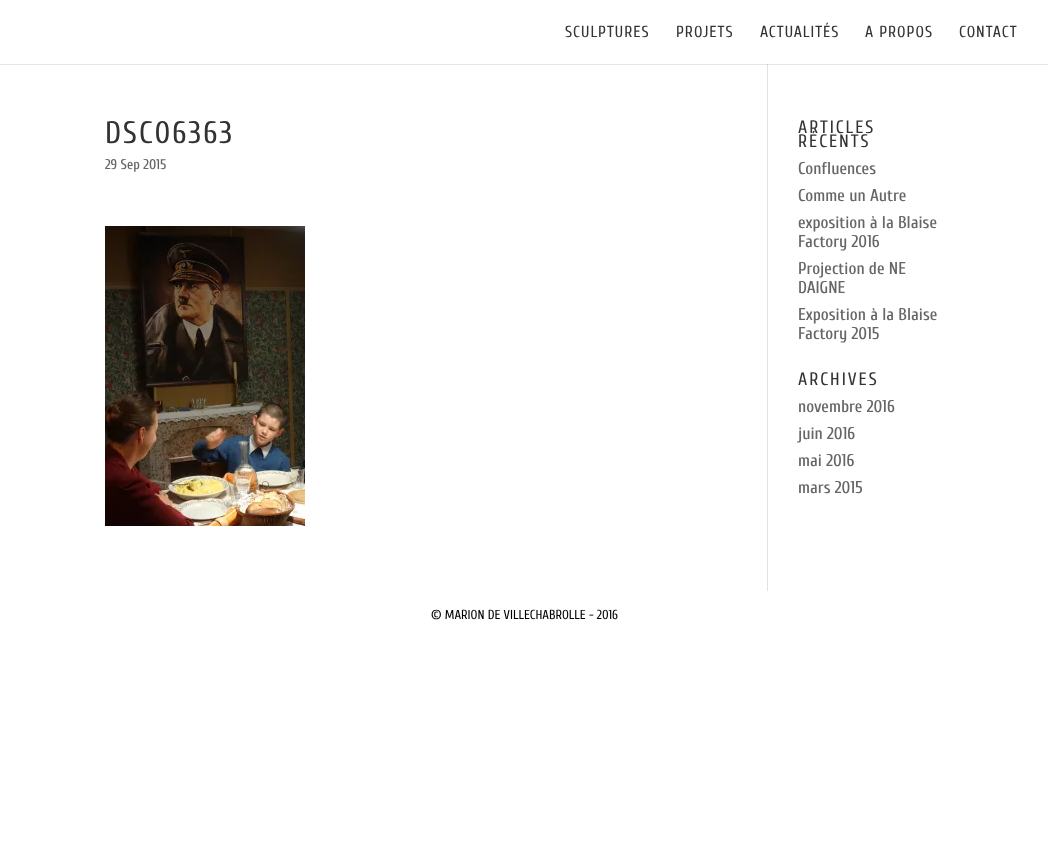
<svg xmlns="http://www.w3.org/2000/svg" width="1048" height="863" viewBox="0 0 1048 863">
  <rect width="100%" height="100%" fill="rgb(255,255,255)"/>
  <rect x="0" y="64" width="1048" height="1" fill="rgb(230,230,230)"/>
  <rect x="767" y="63" width="1" height="528" fill="rgb(226,226,226)"/>
  <rect x="767" y="63" width="1" height="1" fill="rgb(255,255,255)"/>
  <g font-family="Cuprum" font-size="16" letter-spacing="1" fill="rgb(51,51,51)">
    <text x="565" y="37">SCULPTURES</text>
    <text x="676" y="37">PROJETS</text>
    <text x="760" y="37">ACTUALITÉS</text>
    <text x="865" y="37">A PROPOS</text>
    <text x="959" y="37">CONTACT</text>
  </g>
  <rect x="767" y="64" width="1" height="1" fill="rgb(203,203,203)"/>
  <text x="105" y="143" font-family="Cuprum" font-size="31" letter-spacing="2" fill="rgb(51,51,51)">DSC06363</text>
  <text x="105" y="169" font-family="Cuprum" font-size="14" font-weight="500" fill="rgb(102,102,102)">29 Sep 2015</text>
  <image x="105" y="226" width="200" height="300" href="pic1.png"/>
  <g font-family="Cuprum" font-size="18" letter-spacing="2" fill="rgb(51,51,51)">
    <text>
      <tspan x="798" y="133">ARTICLES</tspan>
      <tspan x="798" y="147">RÉCENTS</tspan>
    </text>
  </g>
  <g font-family="Cuprum" font-size="17" font-weight="500" fill="rgb(102,102,102)">
    <text>
      <tspan x="798" y="174">Confluences</tspan>
      <tspan x="798" y="201">Comme un Autre</tspan>
      <tspan x="798" y="228">exposition à la Blaise</tspan>
      <tspan x="798" y="247">Factory 2016</tspan>
      <tspan x="798" y="274">Projection de NE</tspan>
      <tspan x="798" y="293">DAIGNE</tspan>
      <tspan x="798" y="320">Exposition à la Blaise</tspan>
      <tspan x="798" y="339">Factory 2015</tspan>
    </text>
  </g>
  <text x="798" y="385" font-family="Cuprum" font-size="18" letter-spacing="2" fill="rgb(51,51,51)">ARCHIVES</text>
  <g font-family="Cuprum" font-size="17" font-weight="500" fill="rgb(102,102,102)">
    <text>
      <tspan x="798" y="412">novembre 2016</tspan>
      <tspan x="798" y="439">juin 2016</tspan>
      <tspan x="798" y="466">mai 2016</tspan>
      <tspan x="798" y="493">mars 2015</tspan>
    </text>
  </g>
  <text x="431" y="619" font-family="Cuprum" font-size="13" fill="rgb(0,0,0)">© MARION DE VILLECHABROLLE - 2016</text>
</svg>
